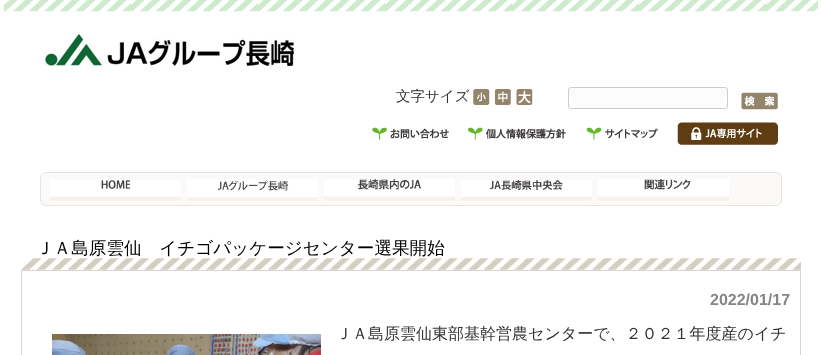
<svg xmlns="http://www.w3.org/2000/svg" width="822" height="355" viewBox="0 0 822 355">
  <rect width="100%" height="100%" fill="rgb(255,255,255)"/>
  <image x="4" y="0" width="814" height="12" href="pic1.png"/>
  <image x="44" y="32" width="250" height="34" href="pic2.png"/>
  <text x="396" y="101" font-family="WenQuanYi Zen Hei" font-size="14.5" font-weight="500" fill="rgb(51,51,51)">文字サイズ</text>
  <image x="473" y="89" width="17" height="16" href="pic3.png"/>
  <image x="495" y="89" width="16" height="16" href="pic4.png"/>
  <image x="516" y="89" width="17" height="16" href="pic5.png"/>
  <rect x="568.5" y="87.5" width="159" height="21" rx="2.5" fill="rgb(252,252,252)" stroke="rgb(204,204,204)"/>
  <image x="741" y="92" width="37" height="18" href="pic6.png"/>
  <image x="372" y="127" width="77" height="13" href="pic7.png"/>
  <image x="468" y="127" width="98" height="13" href="pic8.png"/>
  <image x="586" y="127" width="72" height="13" href="pic9.png"/>
  <image x="677" y="122" width="101" height="23" href="pic10.png"/>
  <rect x="40.5" y="172.5" width="741" height="33" rx="5.5" fill="rgb(251,250,249)" stroke="rgb(232,229,224)"/>
  <image x="50" y="180" width="131" height="21" href="pic11.png"/>
  <image x="187" y="179" width="131" height="22" href="pic12.png"/>
  <image x="324" y="179" width="131" height="22" href="pic13.png"/>
  <image x="461" y="180" width="131" height="21" href="pic14.png"/>
  <image x="598" y="179" width="131" height="22" href="pic15.png"/>
  <image x="21" y="258" width="780" height="12" href="pic16.png"/>
  <text x="36" y="254" font-family="WenQuanYi Zen Hei" font-size="17.6" font-weight="500" fill="rgb(0,0,0)">ＪＡ島原雲仙　イチゴパッケージセンター選果開始</text>
  <rect x="21.5" y="270.5" width="779" height="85" fill="none" stroke="rgb(213,213,213)"/>
  <text x="710" y="305" font-family="Liberation Sans" font-size="16" font-weight="bold" fill="rgb(133,133,133)">2022/01/17</text>
  <image x="52" y="334" width="269" height="21" href="pic17.png"/>
  <text x="336" y="339" font-family="WenQuanYi Zen Hei" font-size="16" font-weight="500" fill="rgb(51,51,51)">ＪＡ島原雲仙東部基幹営農センターで、２０２１年度産のイチ</text>
</svg>
